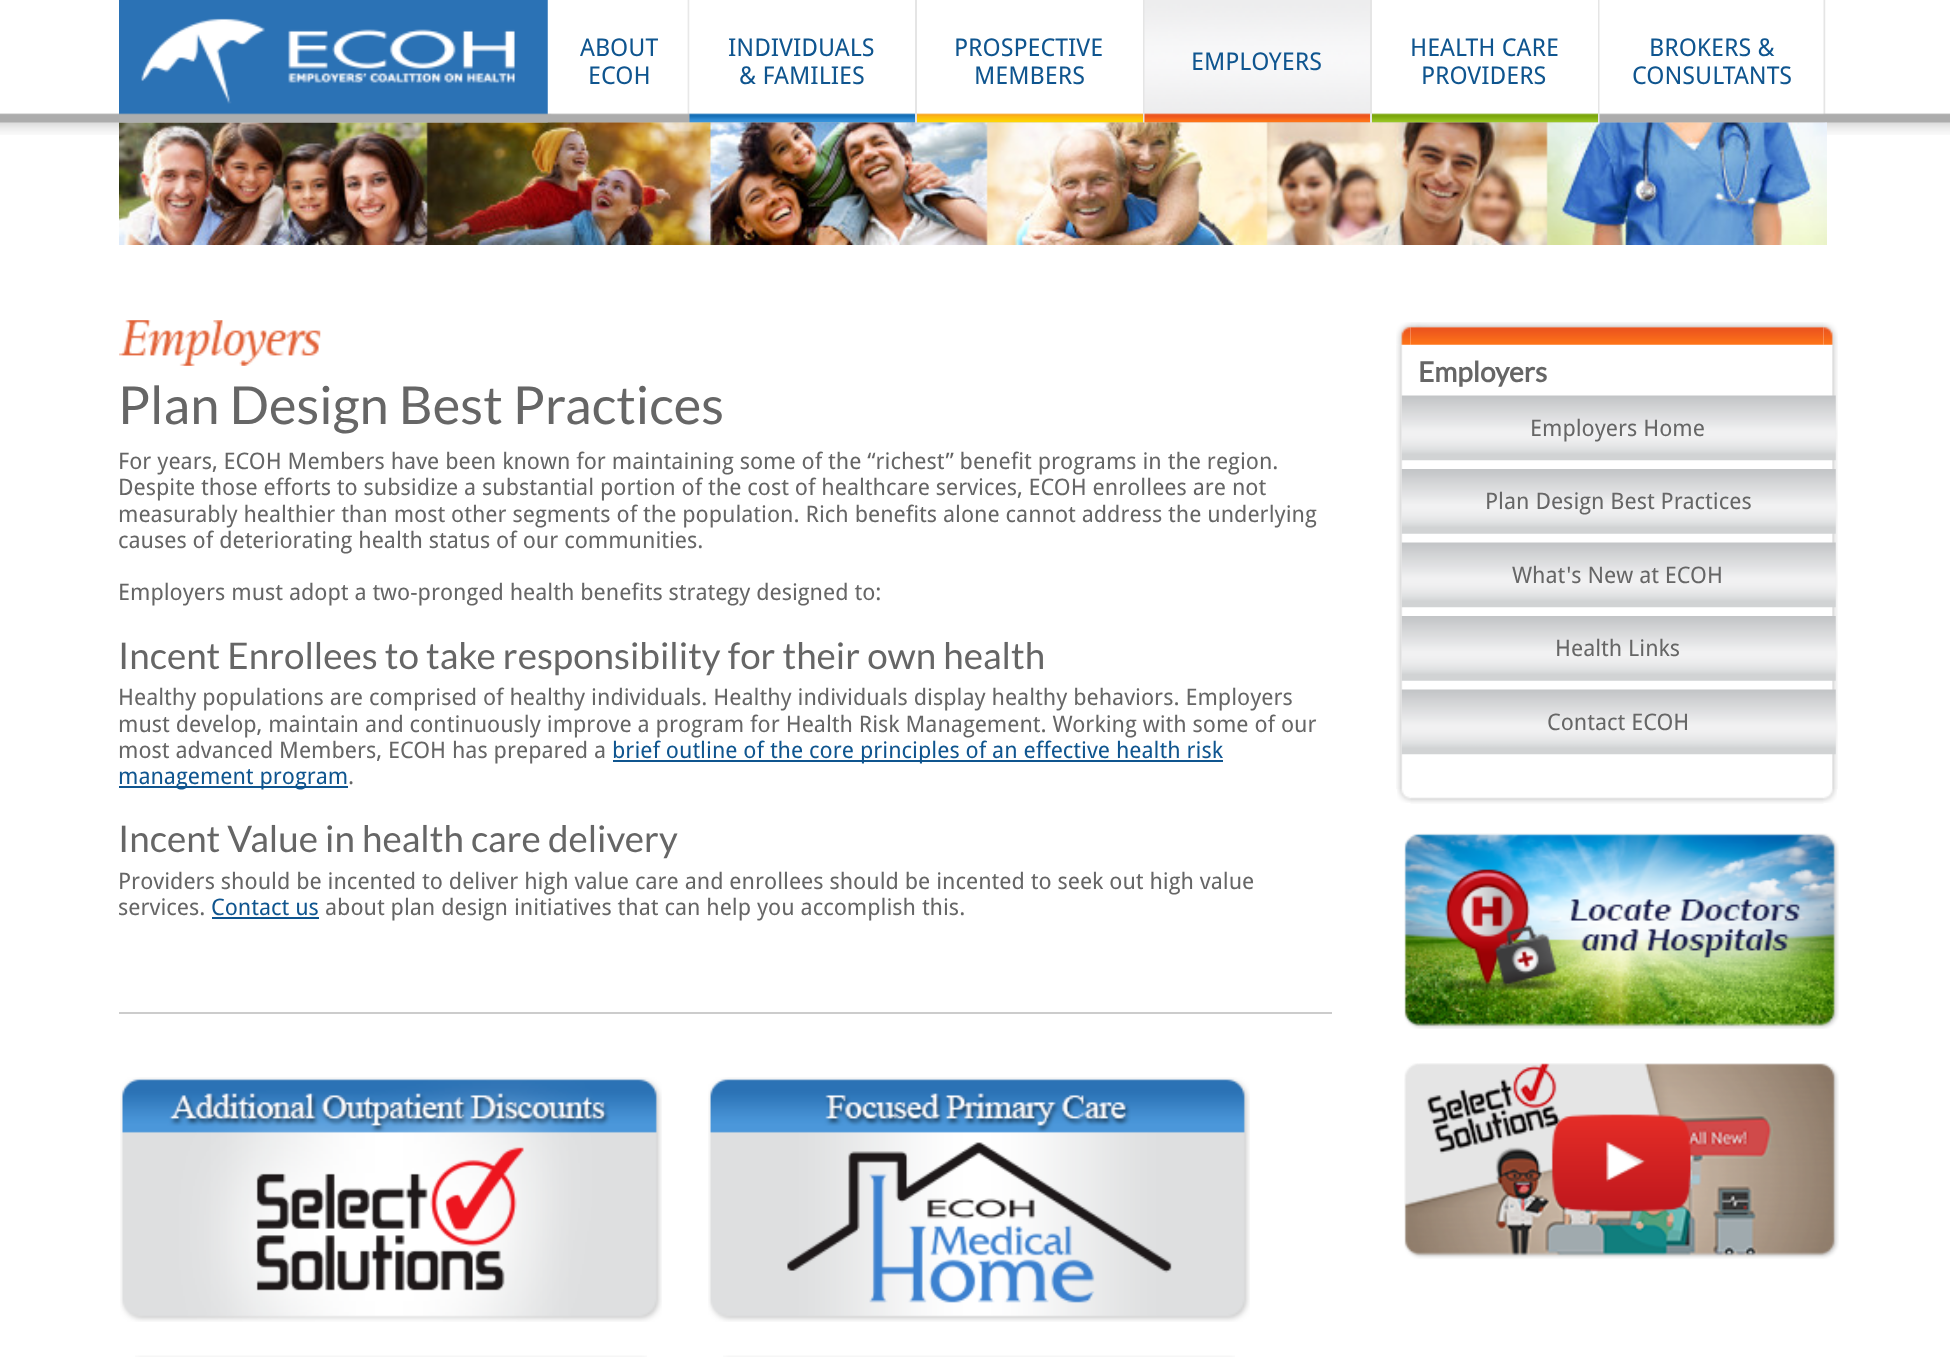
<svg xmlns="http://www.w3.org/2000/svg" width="1950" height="1357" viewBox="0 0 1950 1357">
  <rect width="100%" height="100%" fill="rgb(255,255,255)"/>
  <image x="0" y="113" width="1950" height="22" href="pic1.png"/>
  <image x="551" y="0" width="139" height="123" href="pic3.png"/>
  <image x="689" y="0" width="226" height="123" href="pic4.png"/>
  <rect x="915" y="0" width="2" height="123" fill="rgb(229,229,229)"/>
  <image x="917" y="113" width="226" height="10" href="pic5.png"/>
  <rect x="1143" y="0" width="2" height="123" fill="rgb(229,229,229)"/>
  <image x="1144" y="0" width="226" height="123" href="pic6.png"/>
  <rect x="1370" y="0" width="2" height="123" fill="rgb(229,229,229)"/>
  <image x="1372" y="113" width="226" height="10" href="pic7.png"/>
  <rect x="1598" y="0" width="2" height="123" fill="rgb(229,229,229)"/>
  <image x="1599" y="0" width="227" height="123" href="pic8.png"/>
  <image x="119" y="122" width="1708" height="123" href="pic9.png"/>
  <image x="119" y="0" width="429" height="123" href="pic2.png"/>
  <g font-family="Droid Sans" font-size="24.5" fill="rgb(15,85,143)">
    <text x="580" y="56">ABOUT</text>
    <text x="588" y="84">ECOH</text>
    <text x="728" y="56">INDIVIDUALS</text>
    <text x="739" y="84">&amp; FAMILIES</text>
    <text x="954" y="56">PROSPECTIVE</text>
    <text x="974" y="84">MEMBERS</text>
    <text x="1191" y="70">EMPLOYERS</text>
    <text x="1410" y="56">HEALTH CARE</text>
    <text x="1421" y="84">PROVIDERS</text>
    <text x="1649" y="56">BROKERS &amp;</text>
    <text x="1632" y="84">CONSULTANTS</text>
  </g>
  <image x="119" y="320" width="202" height="46" href="pic10.png"/>
  <text x="118" y="424" font-family="Lato" font-size="52.5" fill="rgb(102,102,102)">Plan Design Best Practices</text>
  <g font-family="Droid Sans" font-size="22.75" fill="rgb(102,102,102)">
    <text>
      <tspan x="118" y="469">For years, ECOH Members have been known for maintaining some of the “richest” benefit programs in the region.</tspan>
      <tspan x="118" y="495">Despite those efforts to subsidize a substantial portion of the cost of healthcare services, ECOH enrollees are not</tspan>
      <tspan x="118" y="522">measurably healthier than most other segments of the population. Rich benefits alone cannot address the underlying</tspan>
      <tspan x="118" y="548">causes of deteriorating health status of our communities.</tspan>
    </text>
    <text x="118" y="600">Employers must adopt a two-pronged health benefits strategy designed to:</text>
  </g>
  <text x="118" y="669" font-family="Lato" font-size="36.75" fill="rgb(102,102,102)">Incent Enrollees to take responsibility for their own health</text>
  <g font-family="Droid Sans" font-size="22.75" fill="rgb(102,102,102)">
    <text>
      <tspan x="118" y="705">Healthy populations are comprised of healthy individuals. Healthy individuals display healthy behaviors. Employers</tspan>
      <tspan x="118" y="732">must develop, maintain and continuously improve a program for Health Risk Management. Working with some of our</tspan>
      <tspan x="118" y="758">most advanced Members, ECOH has prepared a</tspan>
    </text>
  </g>
  <rect x="613" y="760" width="610" height="2" fill="rgb(15,85,143)"/>
  <text x="612" y="758" font-family="Droid Sans" font-size="22.75" fill="rgb(15,85,143)">brief outline of the core principles of an effective health risk</text>
  <rect x="119" y="786" width="229" height="2" fill="rgb(15,85,143)"/>
  <text x="118" y="784" font-family="Droid Sans" font-size="22.75" fill="rgb(15,85,143)">management program</text>
  <text x="348" y="784" font-family="Droid Sans" font-size="22.75" fill="rgb(102,102,102)">.</text>
  <text x="118" y="852" font-family="Lato" font-size="36.75" fill="rgb(102,102,102)">Incent Value in health care delivery</text>
  <g font-family="Droid Sans" font-size="22.75" fill="rgb(102,102,102)">
    <text>
      <tspan x="118" y="889">Providers should be incented to deliver high value care and enrollees should be incented to seek out high value</tspan>
      <tspan x="118" y="915">services.</tspan>
    </text>
  </g>
  <text x="211" y="915" font-family="Droid Sans" font-size="22.75" fill="rgb(15,85,143)">Contact us</text>
  <rect x="212" y="917" width="107" height="2" fill="rgb(15,85,143)"/>
  <text x="325" y="915" font-family="Droid Sans" font-size="22.75" fill="rgb(102,102,102)">about plan design initiatives that can help you accomplish this.</text>
  <rect x="119" y="1012" width="1213" height="2" fill="rgb(204,204,204)"/>
  <image x="120" y="1077" width="542" height="245" href="pic11.png"/>
  <image x="708" y="1077" width="542" height="245" href="pic12.png"/>
  <image x="135" y="1355" width="512" height="2" href="pic13.png"/>
  <image x="723" y="1355" width="512" height="2" href="pic13.png"/>
  <image x="1396" y="344" width="7" height="446" href="pic17.png"/>
  <image x="1396" y="322" width="15" height="23" href="pic14.png"/>
  <image x="1832" y="344" width="6" height="446" href="pic18.png"/>
  <image x="1823" y="322" width="15" height="23" href="pic16.png"/>
  <image x="1410" y="322" width="414" height="23" href="pic15.png"/>
  <text x="1418" y="382" font-family="Lato" font-size="28" font-weight="bold" fill="rgb(102,102,102)">Employers</text>
  <image x="1401" y="395" width="435" height="66" href="pic19.png"/>
  <text x="1530" y="436" font-family="Droid Sans" font-size="22.75" fill="rgb(102,102,102)">Employers Home</text>
  <image x="1401" y="469" width="435" height="65" href="pic20.png"/>
  <text x="1485" y="509" font-family="Droid Sans" font-size="22.75" fill="rgb(102,102,102)">Plan Design Best Practices</text>
  <image x="1401" y="542" width="435" height="66" href="pic21.png"/>
  <text x="1512" y="583" font-family="Droid Sans" font-size="22.75" fill="rgb(102,102,102)">What's New at ECOH</text>
  <image x="1401" y="616" width="435" height="65" href="pic22.png"/>
  <text x="1555" y="656" font-family="Droid Sans" font-size="22.75" fill="rgb(102,102,102)">Health Links</text>
  <image x="1401" y="689" width="435" height="66" href="pic23.png"/>
  <text x="1547" y="730" font-family="Droid Sans" font-size="22.75" fill="rgb(102,102,102)">Contact ECOH</text>
  <image x="1397" y="789" width="14" height="14" href="pic24.png"/>
  <image x="1823" y="789" width="14" height="14" href="pic26.png"/>
  <image x="1410" y="797" width="414" height="7" href="pic25.png"/>
  <image x="1404" y="833" width="435" height="196" href="pic27.png"/>
  <image x="1404" y="1063" width="435" height="196" href="pic28.png"/>
</svg>
